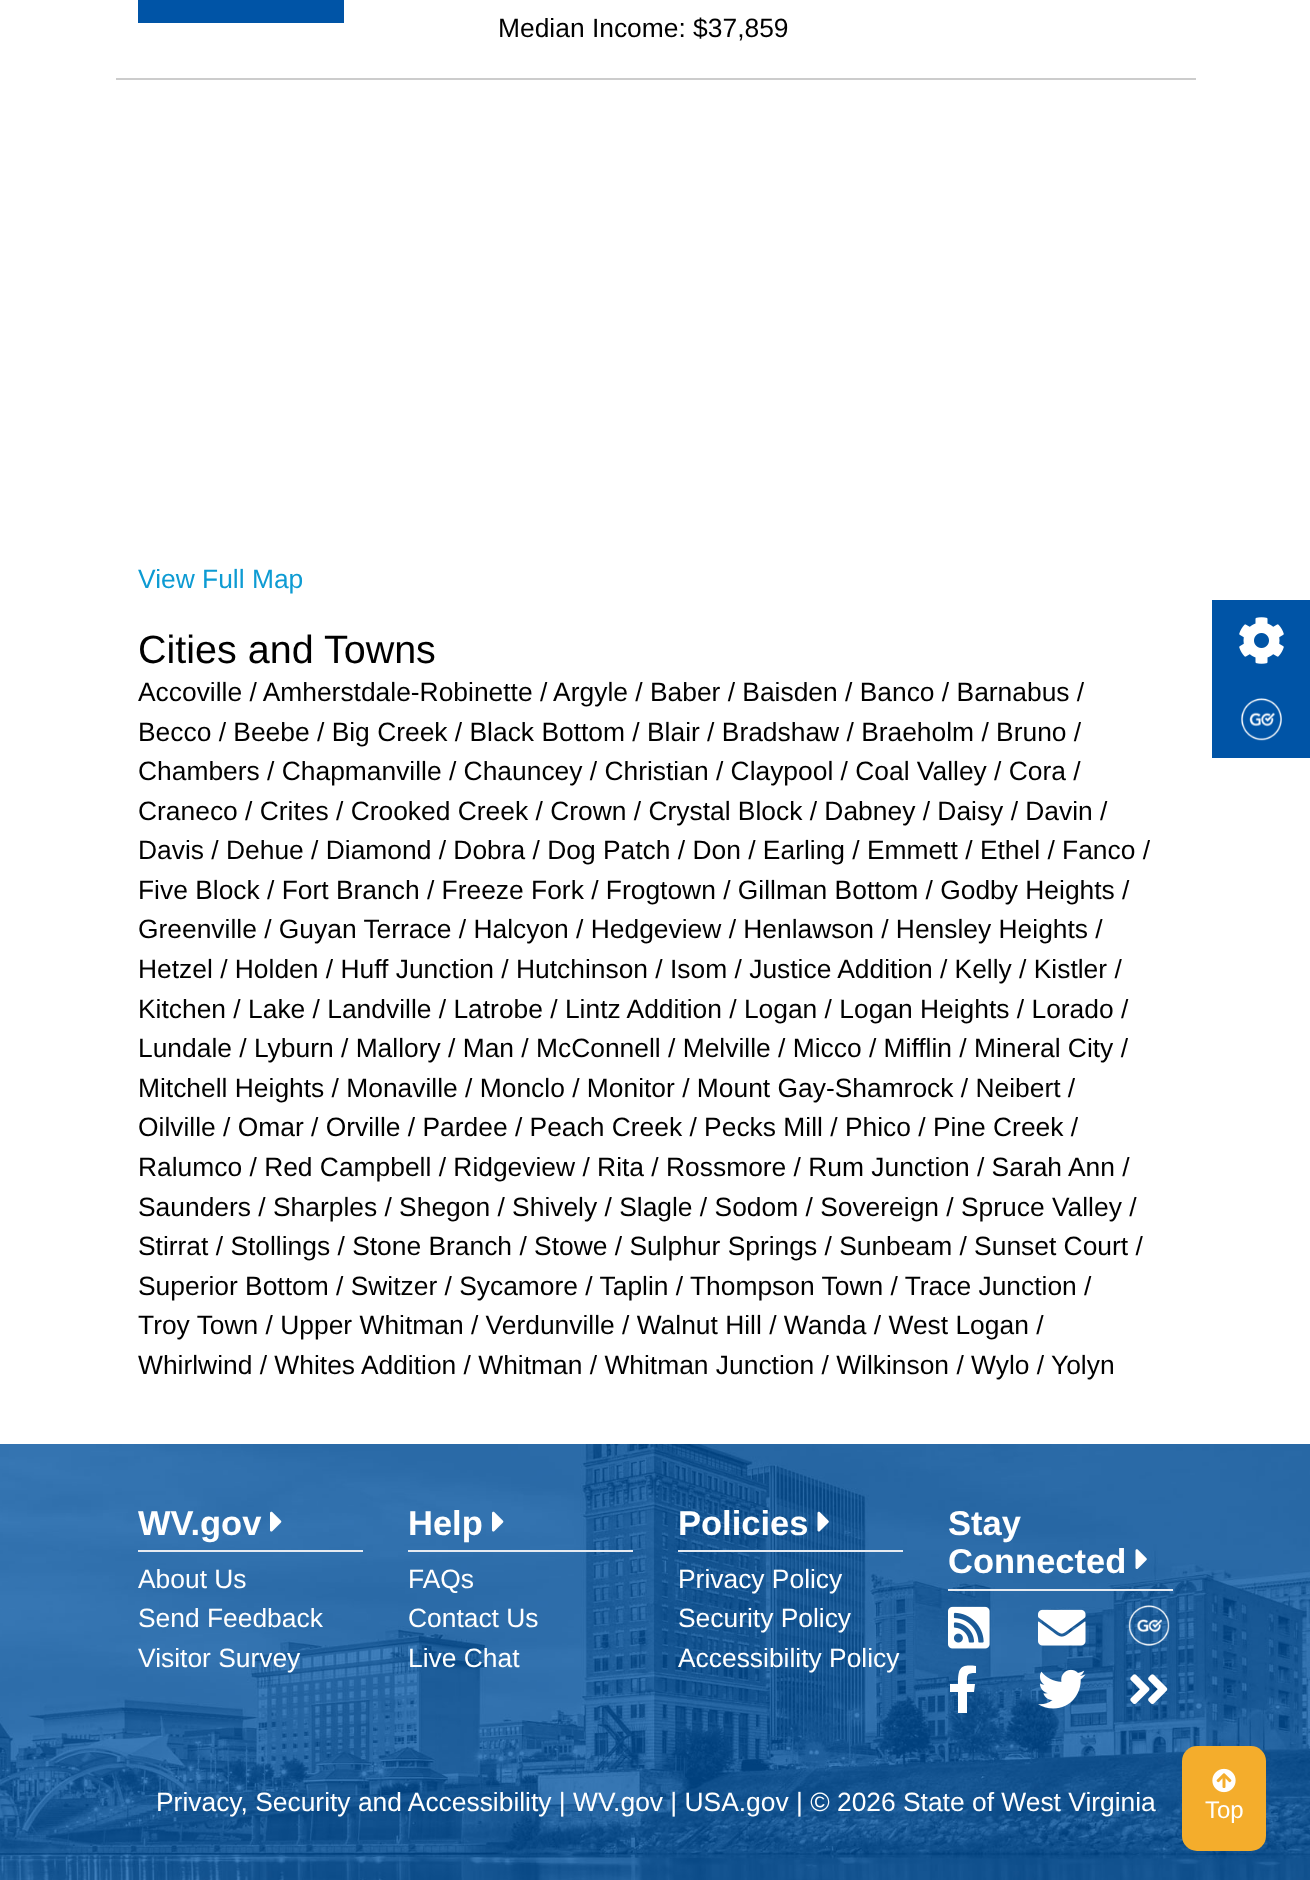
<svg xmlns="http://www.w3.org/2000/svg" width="1310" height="1880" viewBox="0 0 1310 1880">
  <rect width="100%" height="100%" fill="rgb(255,255,255)"/>
  <rect x="138" y="0" width="206" height="23" fill="rgb(0,84,166)"/>
  <text x="498" y="37" font-family="Liberation Sans" font-size="26.4" fill="rgb(0,0,0)">Median Income: $37,859</text>
  <rect x="116" y="78" width="1080" height="2" fill="rgb(204,204,204)"/>
  <text x="138" y="588" font-family="Liberation Sans" font-size="26.4" fill="rgb(13,155,211)">View Full Map</text>
  <text x="138" y="663" font-family="Liberation Sans" font-size="39.5" fill="rgb(0,0,0)">Cities and Towns</text>
  <g font-family="Liberation Sans" font-size="26.4" fill="rgb(0,0,0)">
    <text>
      <tspan x="138" y="701">Accoville / Amherstdale-Robinette / Argyle / Baber / Baisden / Banco / Barnabus /</tspan>
      <tspan x="138" y="741">Becco / Beebe / Big Creek / Black Bottom / Blair / Bradshaw / Braeholm / Bruno /</tspan>
      <tspan x="138" y="780">Chambers / Chapmanville / Chauncey / Christian / Claypool / Coal Valley / Cora /</tspan>
      <tspan x="138" y="820">Craneco / Crites / Crooked Creek / Crown / Crystal Block / Dabney / Daisy / Davin /</tspan>
      <tspan x="138" y="859">Davis / Dehue / Diamond / Dobra / Dog Patch / Don / Earling / Emmett / Ethel / Fanco /</tspan>
      <tspan x="138" y="899">Five Block / Fort Branch / Freeze Fork / Frogtown / Gillman Bottom / Godby Heights /</tspan>
      <tspan x="138" y="938">Greenville / Guyan Terrace / Halcyon / Hedgeview / Henlawson / Hensley Heights /</tspan>
      <tspan x="138" y="978">Hetzel / Holden / Huff Junction / Hutchinson / Isom / Justice Addition / Kelly / Kistler /</tspan>
      <tspan x="138" y="1018">Kitchen / Lake / Landville / Latrobe / Lintz Addition / Logan / Logan Heights / Lorado /</tspan>
      <tspan x="138" y="1057">Lundale / Lyburn / Mallory / Man / McConnell / Melville / Micco / Mifflin / Mineral City /</tspan>
      <tspan x="138" y="1097">Mitchell Heights / Monaville / Monclo / Monitor / Mount Gay-Shamrock / Neibert /</tspan>
      <tspan x="138" y="1136">Oilville / Omar / Orville / Pardee / Peach Creek / Pecks Mill / Phico / Pine Creek /</tspan>
      <tspan x="138" y="1176">Ralumco / Red Campbell / Ridgeview / Rita / Rossmore / Rum Junction / Sarah Ann /</tspan>
      <tspan x="138" y="1216">Saunders / Sharples / Shegon / Shively / Slagle / Sodom / Sovereign / Spruce Valley /</tspan>
      <tspan x="138" y="1255">Stirrat / Stollings / Stone Branch / Stowe / Sulphur Springs / Sunbeam / Sunset Court /</tspan>
      <tspan x="138" y="1295">Superior Bottom / Switzer / Sycamore / Taplin / Thompson Town / Trace Junction /</tspan>
      <tspan x="138" y="1334">Troy Town / Upper Whitman / Verdunville / Walnut Hill / Wanda / West Logan /</tspan>
      <tspan x="138" y="1374">Whirlwind / Whites Addition / Whitman / Whitman Junction / Wilkinson / Wylo / Yolyn</tspan>
    </text>
  </g>
  <rect x="1212" y="600" width="98" height="158" fill="rgb(0,84,166)"/>
  <image x="1239" y="617" width="45" height="47" href="pic1.png"/>
  <image x="1241" y="698" width="41" height="43" href="pic2.png"/>
  <image x="0" y="1444" width="1310" height="436" href="pic3.png"/>
  <rect x="138" y="1550" width="225" height="2" fill="rgb(231,235,241)"/>
  <text x="138" y="1535" font-family="Liberation Sans" font-size="34.5" font-weight="bold" fill="rgb(255,255,255)">WV.gov</text>
  <image x="270" y="1511" width="12" height="21" href="pic4.png"/>
  <g font-family="Liberation Sans" font-size="26.4" fill="rgb(255,255,255)">
    <text>
      <tspan x="138" y="1588">About Us</tspan>
      <tspan x="138" y="1627">Send Feedback</tspan>
      <tspan x="138" y="1667">Visitor Survey</tspan>
    </text>
  </g>
  <rect x="408" y="1550" width="225" height="2" fill="rgb(231,235,241)"/>
  <text x="408" y="1535" font-family="Liberation Sans" font-size="34.5" font-weight="bold" fill="rgb(255,255,255)">Help</text>
  <image x="492" y="1511" width="12" height="21" href="pic5.png"/>
  <g font-family="Liberation Sans" font-size="26.4" fill="rgb(255,255,255)">
    <text>
      <tspan x="408" y="1588">FAQs</tspan>
      <tspan x="408" y="1627">Contact Us</tspan>
      <tspan x="408" y="1667">Live Chat</tspan>
    </text>
  </g>
  <rect x="678" y="1550" width="225" height="2" fill="rgb(231,235,241)"/>
  <text x="678" y="1535" font-family="Liberation Sans" font-size="34.5" font-weight="bold" fill="rgb(255,255,255)">Policies</text>
  <image x="817" y="1511" width="12" height="21" href="pic6.png"/>
  <g font-family="Liberation Sans" font-size="26.4" fill="rgb(255,255,255)">
    <text>
      <tspan x="678" y="1588">Privacy Policy</tspan>
      <tspan x="678" y="1627">Security Policy</tspan>
      <tspan x="678" y="1667">Accessibility Policy</tspan>
    </text>
  </g>
  <rect x="948" y="1589" width="225" height="2" fill="rgb(231,235,241)"/>
  <g font-family="Liberation Sans" font-size="34.5" font-weight="bold" fill="rgb(255,255,255)">
    <text>
      <tspan x="948" y="1535">Stay</tspan>
      <tspan x="948" y="1573">Connected</tspan>
    </text>
  </g>
  <image x="1135" y="1549" width="12" height="20" href="pic7.png"/>
  <image x="948" y="1606" width="42" height="43" href="pic8.png"/>
  <image x="1038" y="1609" width="48" height="37" href="pic9.png"/>
  <image x="1128" y="1605" width="42" height="41" href="pic10.png"/>
  <path d="M974 1692H967V1713H958V1692H950V1684H958C958 1668 960 1664 976 1666V1673C966 1673 967 1675 967 1684H975Z" fill="rgb(255,255,255)"/>
  <image x="1038" y="1669" width="48" height="40" href="pic11.png"/>
  <image x="1130" y="1674" width="38" height="30" href="pic12.png"/>
  <text x="156" y="1811" font-family="Liberation Sans" font-size="26.4" fill="rgb(255,255,255)">Privacy, Security and Accessibility | WV.gov | USA.gov | © 2026 State of West Virginia</text>
  <rect x="1182" y="1746" width="84" height="105" rx="15" fill="rgb(244,173,44)"/>
  <image x="1212" y="1768" width="24" height="25" href="pic13.png"/>
  <text x="1205" y="1818" font-family="Liberation Sans" font-size="24" fill="rgb(255,255,255)">Top</text>
</svg>
